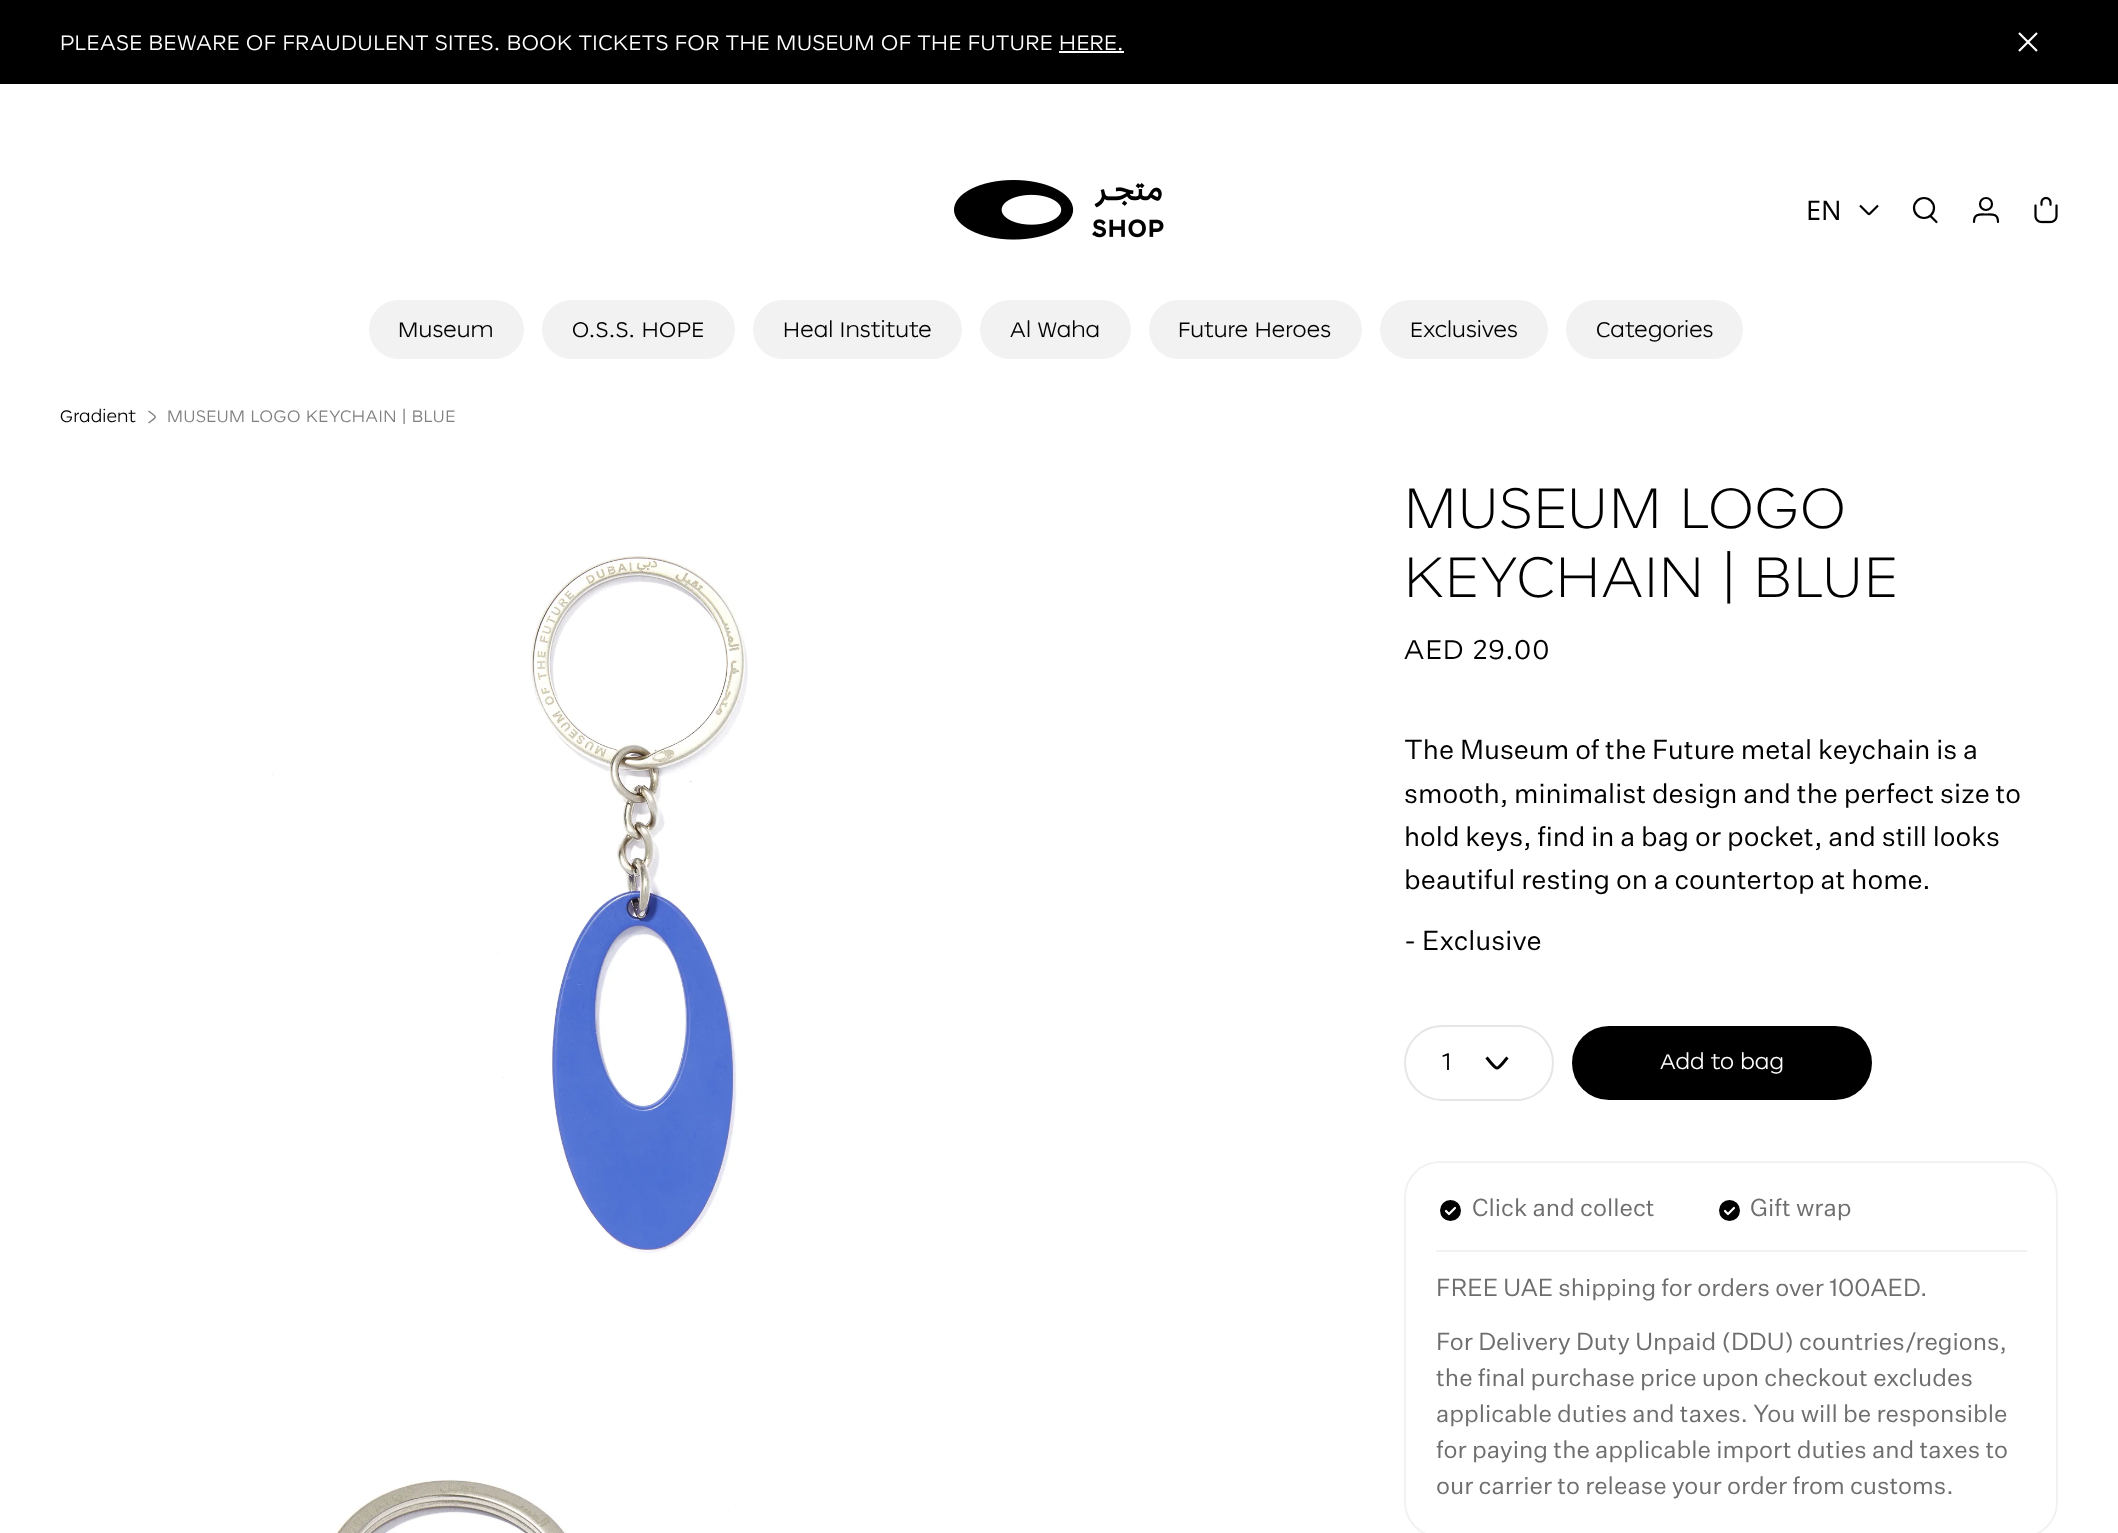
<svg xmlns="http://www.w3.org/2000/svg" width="2118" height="1533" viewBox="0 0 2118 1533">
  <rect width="100%" height="100%" fill="rgb(255,255,255)"/>
  <rect x="0" y="0" width="2118" height="84" fill="rgb(0,0,0)"/>
  <text x="60" y="50" font-family="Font" font-size="21" letter-spacing="0.63" fill="rgb(255,255,255)">PLEASE BEWARE OF FRAUDULENT SITES. BOOK TICKETS FOR THE MUSEUM OF THE FUTURE HERE.</text>
  <rect x="1059" y="51" width="65" height="2" fill="rgb(255,255,255)"/>
  <path d="M2037 33L2019 51M2019 33L2037 51" fill="none" stroke="rgb(255,255,255)" stroke-width="2.2"/>
  <text x="1806" y="220" font-family="Noto Sans" font-size="27" fill="rgb(0,0,0)">EN</text>
  <path d="M1860 205.5L1868 213.5C1868.5 214 1869.5 214 1870 213.5L1878 205.5" fill="none" stroke="rgb(0,0,0)" stroke-width="2.2"/>
  <circle cx="1924" cy="208" r="10" fill="none" stroke="rgb(0,0,0)" stroke-width="2.2"/>
  <path d="M1930.5 216L1936.5 222" fill="none" stroke="rgb(0,0,0)" stroke-width="2.2" stroke-linecap="round" stroke-linejoin="round"/>
  <circle cx="1986" cy="204" r="6" fill="none" stroke="rgb(0,0,0)" stroke-width="2.2"/>
  <path d="M1998 222C1998 213.5 1992.5 214.5 1986 214.5C1979.5 214.5 1974 213.5 1974 222" fill="none" stroke="rgb(0,0,0)" stroke-width="2.2" stroke-linecap="round" stroke-linejoin="round"/>
  <image x="2034" y="196" width="24" height="28" href="pic1.png"/>
  <image x="954" y="180" width="210" height="60" href="pic2.png"/>
  <rect x="369" y="300" width="155" height="59" rx="29.5" fill="rgb(242,242,242)"/>
  <text x="398" y="337" font-family="Font" font-size="21" letter-spacing="0.63" fill="rgb(0,0,0)">Museum</text>
  <rect x="542" y="300" width="193" height="59" rx="29.5" fill="rgb(242,242,242)"/>
  <text x="572" y="337" font-family="Font" font-size="21" letter-spacing="0.63" fill="rgb(0,0,0)">O.S.S. HOPE</text>
  <rect x="753" y="300" width="209" height="59" rx="29.5" fill="rgb(242,242,242)"/>
  <text x="783" y="337" font-family="Font" font-size="21" letter-spacing="0.63" fill="rgb(0,0,0)">Heal Institute</text>
  <rect x="980" y="300" width="151" height="59" rx="29.5" fill="rgb(242,242,242)"/>
  <text x="1010" y="337" font-family="Font" font-size="21" letter-spacing="0.63" fill="rgb(0,0,0)">Al Waha</text>
  <rect x="1149" y="300" width="213" height="59" rx="29.5" fill="rgb(242,242,242)"/>
  <text x="1178" y="337" font-family="Font" font-size="21" letter-spacing="0.63" fill="rgb(0,0,0)">Future Heroes</text>
  <rect x="1380" y="300" width="168" height="59" rx="29.5" fill="rgb(242,242,242)"/>
  <text x="1410" y="337" font-family="Font" font-size="21" letter-spacing="0.63" fill="rgb(0,0,0)">Exclusives</text>
  <rect x="1566" y="300" width="177" height="59" rx="29.5" fill="rgb(242,242,242)"/>
  <text x="1596" y="337" font-family="Font" font-size="21" letter-spacing="0.63" fill="rgb(0,0,0)">Categories</text>
  <text x="60" y="422" font-family="Font" font-size="16.5" letter-spacing="0.65" fill="rgb(0,0,0)">Gradient</text>
  <path d="M148.5 411C157.5 418 157.5 416 148.5 423" fill="none" stroke="rgb(128,128,128)" stroke-width="1.5"/>
  <text x="167" y="422" font-family="Font" font-size="16.5" letter-spacing="0.65" fill="rgb(128,128,128)">MUSEUM LOGO KEYCHAIN | BLUE</text>
  <image x="272" y="556" width="476" height="697" href="pic3.png"/>
  <image x="335" y="1479" width="394" height="54" href="pic4.png"/>
  <g font-family="'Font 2'" font-size="57" letter-spacing="1.75" fill="rgb(0,0,0)">
    <text>
      <tspan x="1404" y="528">MUSEUM LOGO</tspan>
      <tspan x="1404" y="597">KEYCHAIN | BLUE</tspan>
    </text>
  </g>
  <text x="1404" y="659" font-family="Font" font-size="27" letter-spacing="1.5" fill="rgb(0,0,0)">AED 29.00</text>
  <g font-family="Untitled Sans" font-size="27" fill="rgb(0,0,0)">
    <text>
      <tspan x="1404" y="759">The Museum of the Future metal keychain is a</tspan>
      <tspan x="1404" y="803">smooth, minimalist design and the perfect size to</tspan>
      <tspan x="1404" y="846">hold keys, find in a bag or pocket, and still looks</tspan>
      <tspan x="1404" y="889">beautiful resting on a countertop at home.</tspan>
    </text>
    <text x="1404" y="950">- Exclusive</text>
  </g>
  <rect x="1405" y="1026" width="148" height="74" rx="37" fill="none" stroke="rgb(230,230,230)" stroke-width="2"/>
  <text x="1442" y="1070" font-family="Font" font-size="24" letter-spacing="1.5" fill="rgb(0,0,0)">1</text>
  <path d="M1486.5 1057.5C1498.5 1071.5 1495.5 1071.5 1507.5 1057.5" fill="none" stroke="rgb(0,0,0)" stroke-width="3"/>
  <rect x="1572" y="1026" width="300" height="74" rx="37" fill="rgb(0,0,0)"/>
  <text x="1660" y="1069" font-family="Font" font-size="21" letter-spacing="0.63" fill="rgb(255,255,255)">Add to bag</text>
  <rect x="1405" y="1162" width="652" height="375" rx="35" fill="none" stroke="rgb(242,242,242)" stroke-width="2"/>
  <circle cx="1450.5" cy="1210.5" r="10.5" fill="rgb(0,0,0)"/>
  <path d="M1446 1211L1449 1214L1455 1208" fill="none" stroke="rgb(255,255,255)" stroke-width="2.2" stroke-linecap="round" stroke-linejoin="round"/>
  <text x="1472" y="1216" font-family="Untitled Sans" font-size="24" fill="rgb(110,110,110)">Click and collect</text>
  <circle cx="1729.5" cy="1210.5" r="10.5" fill="rgb(0,0,0)"/>
  <path d="M1725 1211L1728 1214L1734 1208" fill="none" stroke="rgb(255,255,255)" stroke-width="2.2" stroke-linecap="round" stroke-linejoin="round"/>
  <text x="1750" y="1216" font-family="Untitled Sans" font-size="24" fill="rgb(110,110,110)">Gift wrap</text>
  <rect x="1436" y="1250" width="591" height="2" fill="rgb(242,242,242)"/>
  <g font-family="Untitled Sans" font-size="24" fill="rgb(110,110,110)">
    <text x="1436" y="1296">FREE UAE shipping for orders over 100AED.</text>
    <text>
      <tspan x="1436" y="1350">For Delivery Duty Unpaid (DDU) countries/regions,</tspan>
      <tspan x="1436" y="1386">the final purchase price upon checkout excludes</tspan>
      <tspan x="1436" y="1422">applicable duties and taxes. You will be responsible</tspan>
      <tspan x="1436" y="1458">for paying the applicable import duties and taxes to</tspan>
      <tspan x="1436" y="1494">our carrier to release your order from customs.</tspan>
    </text>
  </g>
</svg>
